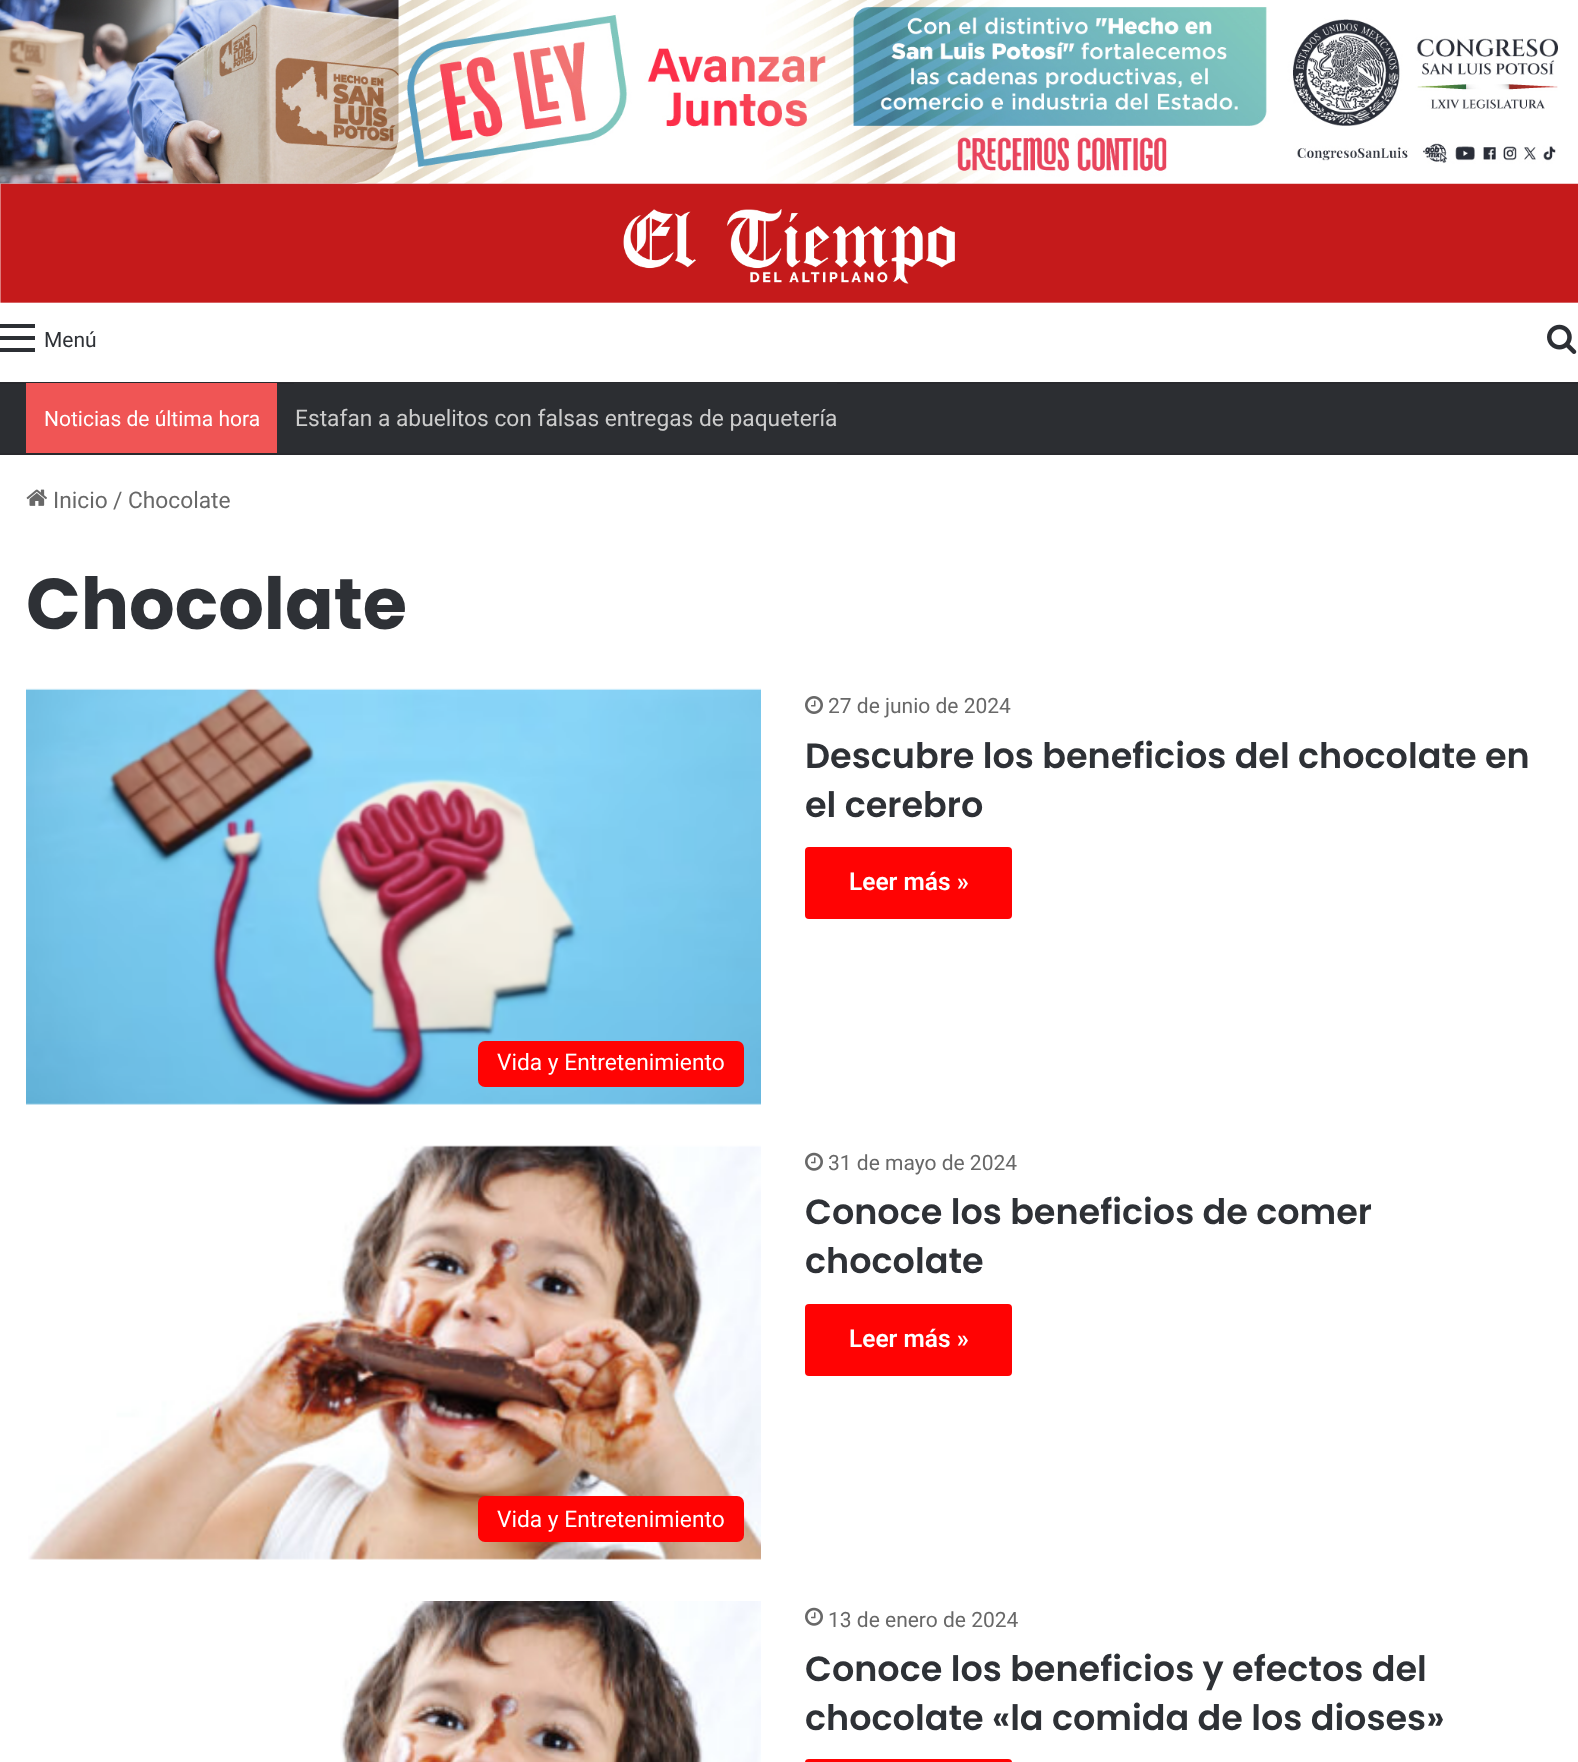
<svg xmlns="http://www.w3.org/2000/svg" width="1578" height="1762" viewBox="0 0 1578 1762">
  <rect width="100%" height="100%" fill="rgb(255,255,255)"/>
  <image x="0" y="0" width="1558" height="184" href="pic1.png"/>
  <image x="0" y="183" width="1578" height="120" href="pic2.png"/>
  <rect x="0" y="336" width="35" height="4" fill="rgb(44,47,52)"/>
  <rect x="0" y="324" width="35" height="4" fill="rgb(44,47,52)"/>
  <rect x="0" y="348" width="35" height="4" fill="rgb(44,47,52)"/>
  <text x="44" y="347" font-family="Roboto" font-size="21" fill="rgb(46,49,54)">Menú</text>
  <image x="1547" y="324" width="30" height="30" href="pic3.png"/>
  <rect x="0" y="384" width="1578" height="69" fill="rgb(44,46,50)"/>
  <rect x="0" y="382" width="1578" height="2" fill="rgb(40,41,45)"/>
  <rect x="0" y="453" width="1578" height="2" fill="rgb(40,41,45)"/>
  <rect x="26" y="383" width="251" height="70" fill="rgb(240,85,85)"/>
  <text x="44" y="426" font-family="Roboto" font-size="21" fill="rgb(255,255,255)">Noticias de última hora</text>
  <rect x="294" y="383" width="543" height="1" fill="rgb(44,46,50)"/>
  <text x="295" y="426" font-family="Roboto" font-size="22.75" fill="rgb(204,204,204)">Estafan a abuelitos con falsas entregas de paquetería</text>
  <image x="26" y="489" width="21" height="17" href="pic4.png"/>
  <g font-family="Roboto" font-size="22.75" fill="rgb(104,104,104)">
    <text x="53" y="508">Inicio</text>
    <text x="113" y="508">/</text>
    <text x="128" y="508">Chocolate</text>
  </g>
  <text x="26" y="629" font-family="Poppins" font-size="71.75" font-weight="bold" fill="rgb(46,49,54)">Chocolate</text>
  <image x="805" y="696" width="18" height="18" href="pic5.png"/>
  <text x="828" y="713" font-family="Roboto" font-size="21" fill="rgb(104,104,104)">27 de junio de 2024</text>
  <g font-family="Poppins" font-size="35" font-weight="600" fill="rgb(46,49,54)">
    <text>
      <tspan x="805" y="768">Descubre los beneficios del chocolate en</tspan>
      <tspan x="805" y="817">el cerebro</tspan>
    </text>
  </g>
  <rect x="805" y="847" width="207" height="72" rx="4" fill="rgb(255,3,3)"/>
  <text x="849" y="890" font-family="Roboto" font-size="24.5" font-weight="600" fill="rgb(255,255,255)">Leer más »</text>
  <image x="26" y="688" width="735" height="417" href="pic6.png"/>
  <rect x="478" y="1041" width="266" height="46" rx="7" fill="rgb(255,3,3)"/>
  <text x="497" y="1070" font-family="Roboto" font-size="22.75" fill="rgb(255,255,255)">Vida y Entretenimiento</text>
  <image x="805" y="1152" width="18" height="19" href="pic7.png"/>
  <text x="828" y="1170" font-family="Roboto" font-size="21" fill="rgb(104,104,104)">31 de mayo de 2024</text>
  <g font-family="Poppins" font-size="35" font-weight="600" fill="rgb(46,49,54)">
    <text>
      <tspan x="805" y="1224">Conoce los beneficios de comer</tspan>
      <tspan x="805" y="1273">chocolate</tspan>
    </text>
  </g>
  <rect x="805" y="1304" width="207" height="72" rx="4" fill="rgb(255,3,3)"/>
  <text x="849" y="1347" font-family="Roboto" font-size="24.5" font-weight="600" fill="rgb(255,255,255)">Leer más »</text>
  <image x="28" y="1145" width="733" height="415" href="pic8.png"/>
  <rect x="478" y="1496" width="266" height="46" rx="7" fill="rgb(255,3,3)"/>
  <text x="497" y="1527" font-family="Roboto" font-size="22.75" fill="rgb(255,255,255)">Vida y Entretenimiento</text>
  <image x="340" y="1601" width="421" height="161" href="pic9.png"/>
  <image x="805" y="1607" width="18" height="19" href="pic7.png"/>
  <text x="828" y="1627" font-family="Roboto" font-size="21" fill="rgb(104,104,104)">13 de enero de 2024</text>
  <g font-family="Poppins" font-size="35" font-weight="600" fill="rgb(46,49,54)">
    <text>
      <tspan x="805" y="1681">Conoce los beneficios y efectos del</tspan>
      <tspan x="805" y="1730">chocolate «la comida de los dioses»</tspan>
    </text>
  </g>
  <rect x="805" y="1759" width="207" height="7" rx="4" fill="rgb(255,3,3)"/>
</svg>
